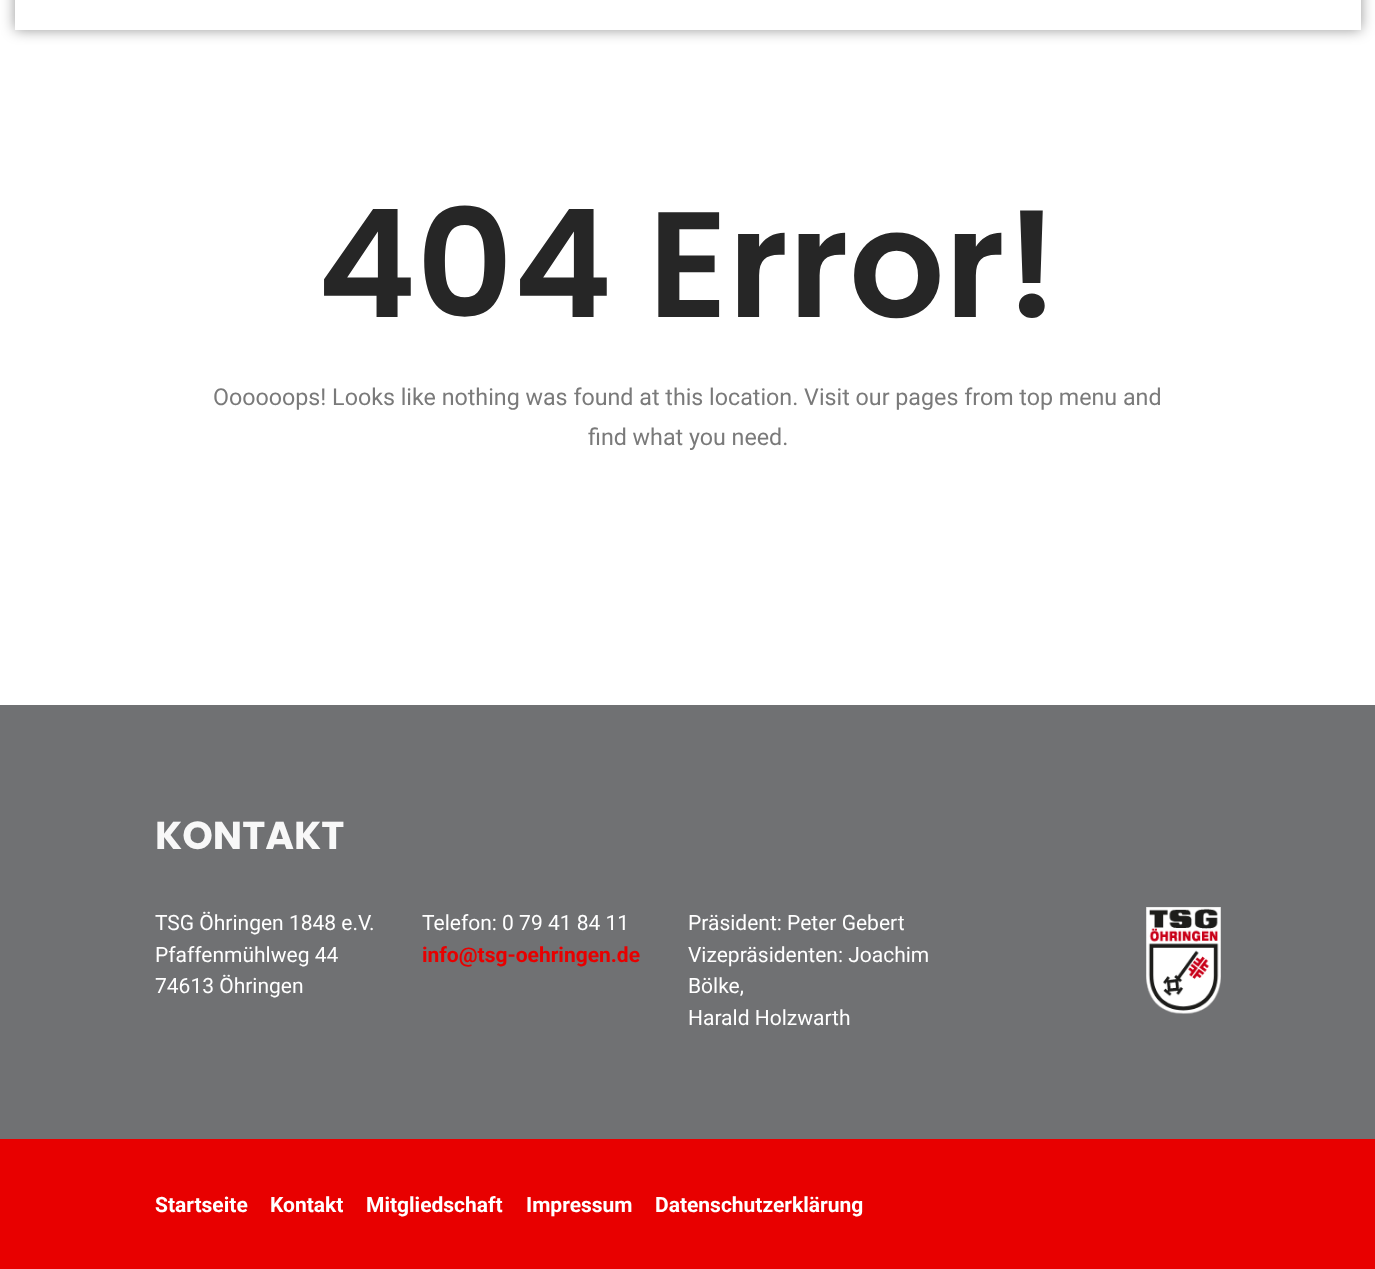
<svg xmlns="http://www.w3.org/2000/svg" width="1375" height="1269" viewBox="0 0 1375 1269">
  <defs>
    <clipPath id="clip1"><path d="M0 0H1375V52H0ZM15-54H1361V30H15Z" clip-rule="evenodd"/></clipPath>
  </defs>
  <rect width="100%" height="100%" fill="rgb(255,255,255)"/>
  <g clip-path="url(#clip1)">
    <rect x="15" y="-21" width="1346" height="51" fill="rgba(0,0,0,0.41)" filter="blur(7px)"/>
  </g>
  <text x="317" y="317" font-family="Poppins" font-size="150" font-weight="600" fill="rgb(38,38,38)">404 Error!</text>
  <g font-family="Roboto" font-size="23.25" fill="rgb(122,122,122)">
    <text x="213" y="405">Oooooops! Looks like nothing was found at this location. Visit our pages from top menu and</text>
    <text x="588" y="445">find what you need.</text>
  </g>
  <rect x="0" y="705" width="1375" height="434" fill="rgb(112,113,115)"/>
  <text x="155" y="849" font-family="Poppins" font-size="39" font-weight="bold" fill="rgb(248,248,248)">KONTAKT</text>
  <g font-family="Roboto" font-size="21" fill="rgb(255,255,255)">
    <text>
      <tspan x="155" y="930">TSG Öhringen 1848 e.V.</tspan>
      <tspan x="155" y="962">Pfaffenmühlweg 44</tspan>
      <tspan x="155" y="993">74613 Öhringen</tspan>
    </text>
    <text x="422" y="930">Telefon: 0 79 41 84 11</text>
  </g>
  <text x="422" y="962" font-family="Roboto" font-size="21" font-weight="bold" fill="rgb(232,0,0)">info@tsg-oehringen.de</text>
  <g font-family="Roboto" font-size="21" fill="rgb(255,255,255)">
    <text>
      <tspan x="688" y="930">Präsident: Peter Gebert</tspan>
      <tspan x="688" y="962">Vizepräsidenten: Joachim</tspan>
      <tspan x="688" y="993">Bölke,</tspan>
      <tspan x="688" y="1025">Harald Holzwarth</tspan>
    </text>
  </g>
  <image x="1146" y="907" width="75" height="107" href="pic1.png"/>
  <rect x="0" y="1139" width="1375" height="130" fill="rgb(232,0,0)"/>
  <g font-family="Roboto" font-size="21" font-weight="bold" fill="rgb(255,255,255)">
    <text x="155" y="1212">Startseite</text>
    <text x="270" y="1212">Kontakt</text>
    <text x="366" y="1212">Mitgliedschaft</text>
    <text x="526" y="1212">Impressum</text>
    <text x="655" y="1212">Datenschutzerklärung</text>
  </g>
</svg>
